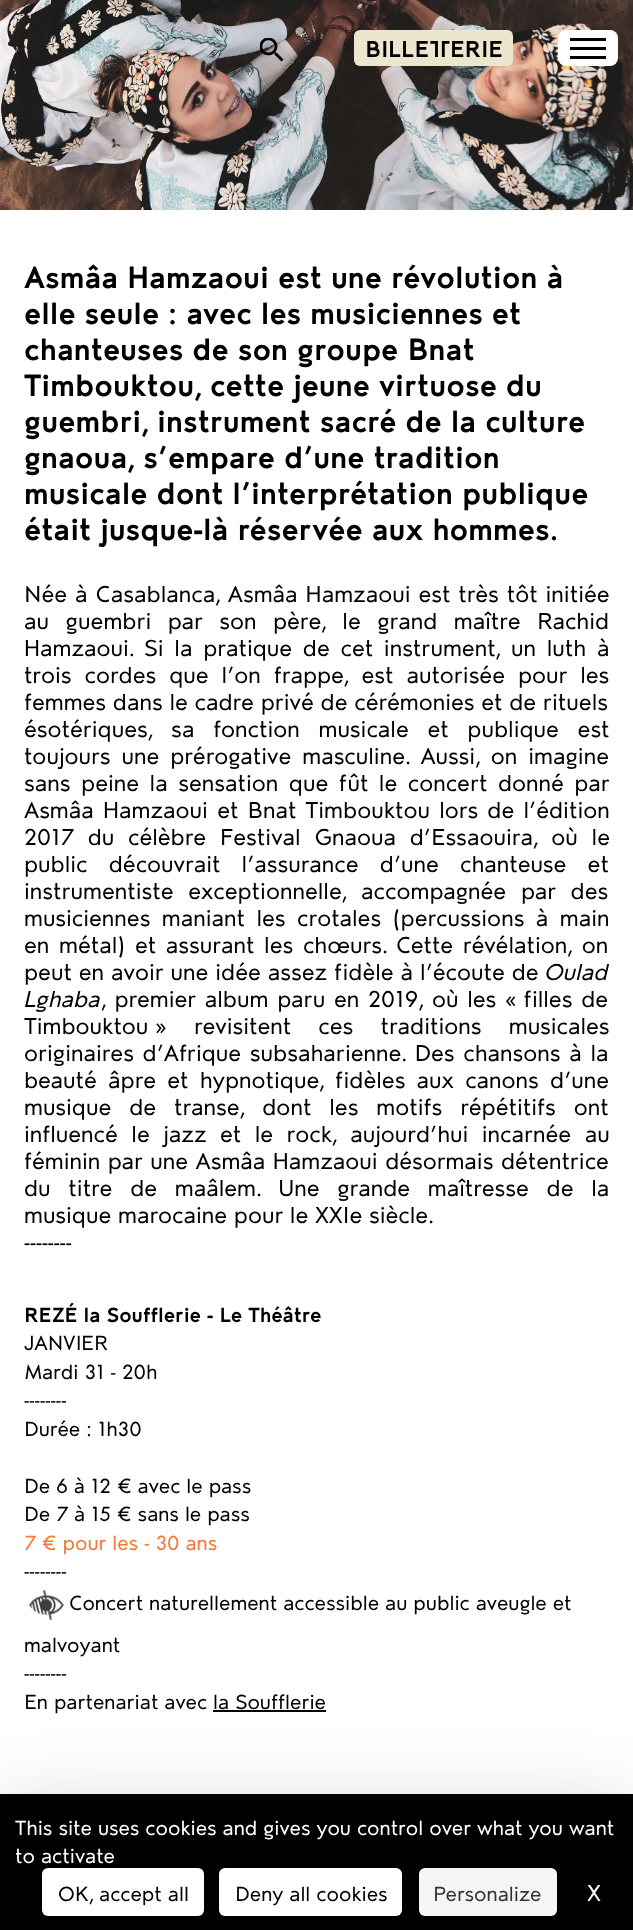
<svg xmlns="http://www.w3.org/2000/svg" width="633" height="1930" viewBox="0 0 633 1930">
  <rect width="100%" height="100%" fill="rgb(255,255,255)"/>
  <image x="0" y="0" width="633" height="210" href="pic2.png"/>
  <image x="260" y="38" width="24" height="24" href="pic1.png"/>
  <rect x="354" y="30" width="159" height="36" rx="6" fill="rgb(237,230,206)"/>
  <text x="365" y="57" font-family="'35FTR'" font-size="27" font-weight="bold" fill="rgb(0,0,0)">BILLETTERIE</text>
  <rect x="558" y="30" width="60" height="36" rx="8" fill="rgb(255,255,255)"/>
  <rect x="570" y="38" width="36" height="3" fill="rgb(0,0,0)"/>
  <rect x="570" y="47" width="36" height="3" fill="rgb(0,0,0)"/>
  <rect x="570" y="56" width="36" height="3" fill="rgb(0,0,0)"/>
  <g font-family="'35FTR'" font-size="36" font-weight="bold" fill="rgb(0,0,0)">
    <text>
      <tspan x="24" y="288">Asmâa Hamzaoui est une révolution à</tspan>
      <tspan x="24" y="324">elle seule : avec les musiciennes et</tspan>
      <tspan x="24" y="360">chanteuses de son groupe Bnat</tspan>
      <tspan x="24" y="396">Timbouktou, cette jeune virtuose du</tspan>
      <tspan x="24" y="432">guembri, instrument sacré de la culture</tspan>
      <tspan x="24" y="468">gnaoua, s’empare d’une tradition</tspan>
      <tspan x="24" y="504">musicale dont l’interprétation publique</tspan>
      <tspan x="24" y="540">était jusque-là réservée aux hommes.</tspan>
    </text>
  </g>
  <g font-family="'35FTR'" font-size="27" fill="rgb(0,0,0)">
    <text>
      <tspan x="24" y="602" word-spacing="1.25">Née à Casablanca, Asmâa Hamzaoui est très tôt initiée</tspan>
      <tspan x="24" y="629" word-spacing="9.75">au guembri par son père, le grand maître Rachid</tspan>
      <tspan x="24" y="656" word-spacing="4">Hamzaoui. Si la pratique de cet instrument, un luth à</tspan>
      <tspan x="24" y="683" word-spacing="6.25">trois cordes que l’on frappe, est autorisée pour les</tspan>
      <tspan x="24" y="710">femmes dans le cadre privé de cérémonies et de rituels</tspan>
      <tspan x="24" y="737" word-spacing="12">ésotériques, sa fonction musicale et publique est</tspan>
      <tspan x="24" y="764" word-spacing="4.25">toujours une prérogative masculine. Aussi, on imagine</tspan>
      <tspan x="24" y="791" word-spacing="3.75">sans peine la sensation que fût le concert donné par</tspan>
      <tspan x="24" y="818" word-spacing="2.5">Asmâa Hamzaoui et Bnat Timbouktou lors de l’édition</tspan>
      <tspan x="24" y="845" word-spacing="7">2017 du célèbre Festival Gnaoua d’Essaouira, où le</tspan>
      <tspan x="24" y="872" word-spacing="14.5">public découvrait l’assurance d’une chanteuse et</tspan>
      <tspan x="24" y="899" word-spacing="8">instrumentiste exceptionnelle, accompagnée par des</tspan>
      <tspan x="24" y="926" word-spacing="4.75">musiciennes maniant les crotales (percussions à main</tspan>
      <tspan x="24" y="953" word-spacing="3">en métal) et assurant les chœurs. Cette révélation, on</tspan>
      <tspan x="24" y="980" word-spacing="0.25">peut en avoir une idée assez fidèle à l’écoute de</tspan>
    </text>
  </g>
  <g font-family="'35FTR'" font-size="27" font-style="italic" fill="rgb(0,0,0)">
    <text x="545" y="980">Oulad</text>
    <text x="24" y="1007">Lghaba</text>
  </g>
  <g font-family="'35FTR'" font-size="27" fill="rgb(0,0,0)">
    <text x="101" y="1007" word-spacing="2">, premier album paru en 2019, où les « filles de</text>
    <text>
      <tspan x="24" y="1034" word-spacing="20.5">Timbouktou » revisitent ces traditions musicales</tspan>
      <tspan x="24" y="1061" word-spacing="2">originaires d’Afrique subsaharienne. Des chansons à la</tspan>
      <tspan x="24" y="1088" word-spacing="4.5">beauté âpre et hypnotique, fidèles aux canons d’une</tspan>
      <tspan x="24" y="1115" word-spacing="11.25">musique de transe, dont les motifs répétitifs ont</tspan>
      <tspan x="24" y="1142" word-spacing="6.75">influencé le jazz et le rock, aujourd’hui incarnée au</tspan>
      <tspan x="24" y="1169" word-spacing="0.75">féminin par une Asmâa Hamzaoui désormais détentrice</tspan>
      <tspan x="24" y="1196" word-spacing="11">du titre de maâlem. Une grande maîtresse de la</tspan>
      <tspan x="24" y="1223">musique marocaine pour le XXIe siècle.</tspan>
      <tspan x="24" y="1250">--------</tspan>
    </text>
  </g>
  <text x="24" y="1322" font-family="'35FTR'" font-size="24" font-weight="bold" fill="rgb(0,0,0)">REZÉ la Soufflerie - Le Théâtre</text>
  <g font-family="'35FTR'" font-size="24" fill="rgb(0,0,0)">
    <text>
      <tspan x="24" y="1350">JANVIER</tspan>
      <tspan x="24" y="1379">Mardi 31 - 20h</tspan>
      <tspan x="24" y="1407">--------</tspan>
      <tspan x="24" y="1436">Durée : 1h30</tspan>
    </text>
    <text>
      <tspan x="24" y="1493">De 6 à 12 € avec le pass</tspan>
      <tspan x="24" y="1521">De 7 à 15 € sans le pass</tspan>
    </text>
  </g>
  <text x="24" y="1550" font-family="'35FTR'" font-size="24" fill="rgb(243,121,52)">7 € pour les - 30 ans</text>
  <text x="24" y="1578" font-family="'35FTR'" font-size="24" fill="rgb(0,0,0)">--------</text>
  <image x="28" y="1590" width="37" height="30" href="pic3.png"/>
  <g font-family="'35FTR'" font-size="24" fill="rgb(0,0,0)">
    <text x="69" y="1610">Concert naturellement accessible au public aveugle et</text>
    <text>
      <tspan x="24" y="1652">malvoyant</tspan>
      <tspan x="24" y="1680">--------</tspan>
      <tspan x="24" y="1709">En partenariat avec la Soufflerie</tspan>
    </text>
  </g>
  <rect x="213" y="1710" width="113" height="2" fill="rgb(0,0,0)"/>
  <rect x="0" y="1824" width="633" height="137" fill="rgba(0,0,0,0.25)" filter="blur(45px)"/>
  <rect x="0" y="1794" width="633" height="136" fill="rgb(0,0,0)"/>
  <g font-family="'35FTR'" font-size="24" fill="rgb(255,255,255)">
    <text>
      <tspan x="15" y="1835">This site uses cookies and gives you control over what you want</tspan>
      <tspan x="15" y="1863">to activate</tspan>
    </text>
  </g>
  <rect x="42" y="1868" width="162" height="48" rx="6" fill="rgb(255,255,255)"/>
  <text x="58" y="1901" font-family="'35FTR'" font-size="24" fill="rgb(0,0,0)">OK, accept all</text>
  <rect x="219" y="1868" width="183" height="48" rx="6" fill="rgb(255,255,255)"/>
  <text x="235" y="1901" font-family="'35FTR'" font-size="24" fill="rgb(0,0,0)">Deny all cookies</text>
  <rect x="419" y="1868" width="138" height="48" rx="6" fill="rgb(245,245,245)"/>
  <text x="433" y="1901" font-family="'35FTR'" font-size="24" fill="rgb(51,51,51)">Personalize</text>
  <text x="587" y="1901" font-family="'35FTR'" font-size="27" fill="rgb(255,255,255)">X</text>
</svg>
